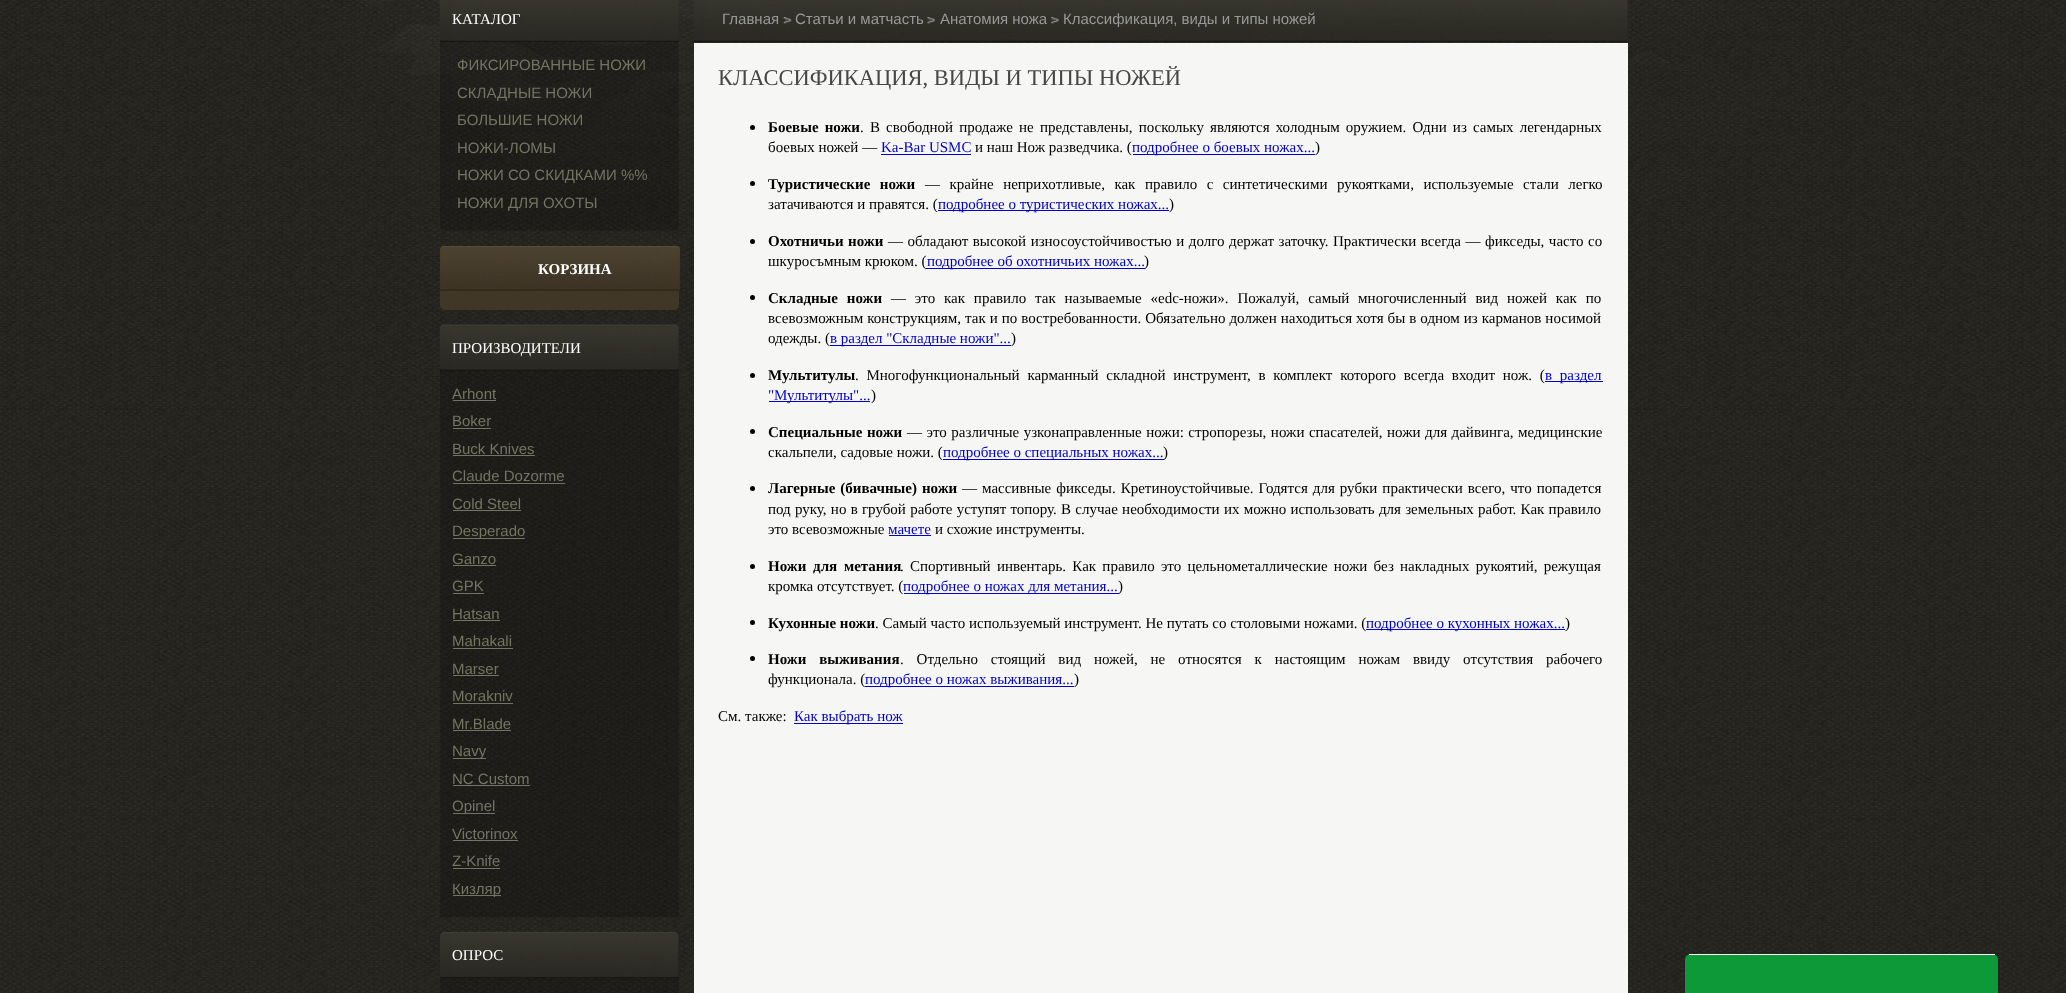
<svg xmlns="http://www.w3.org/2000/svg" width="2066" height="993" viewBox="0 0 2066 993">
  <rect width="100%" height="100%" fill="rgb(255,255,255)"/>
  <image x="0" y="409" width="2066" height="584" href="pic1.png"/>
  <image x="0" y="0" width="2066" height="410" href="pic2.png"/>
  <image x="440" y="0" width="239" height="231" href="pic3.png"/>
  <image x="440" y="0" width="239" height="42" href="pic4.png"/>
  <text x="452" y="24" font-family="Liberation Serif" font-size="15" fill="rgb(255,255,255)">КАТАЛОГ</text>
  <g font-family="Liberation Sans" font-size="15" fill="rgb(116,116,98)">
    <text>
      <tspan x="457" y="70">ФИКСИРОВАННЫЕ НОЖИ</tspan>
      <tspan x="457" y="98">СКЛАДНЫЕ НОЖИ</tspan>
      <tspan x="457" y="125">БОЛЬШИЕ НОЖИ</tspan>
      <tspan x="457" y="153">НОЖИ-ЛОМЫ</tspan>
      <tspan x="457" y="180">НОЖИ СО СКИДКАМИ %%</tspan>
      <tspan x="457" y="208">НОЖИ ДЛЯ ОХОТЫ</tspan>
    </text>
  </g>
  <rect x="440" y="246" width="239" height="64" rx="5" fill="rgb(65,55,39)"/>
  <image x="440" y="246" width="240" height="45" href="pic5.png"/>
  <text x="538" y="274" font-family="Liberation Serif" font-size="15" font-weight="bold" fill="rgb(255,255,255)">КОРЗИНА</text>
  <rect x="440" y="325" width="239" height="592" fill="rgba(0,0,0,0.2)"/>
  <image x="440" y="324" width="239" height="47" href="pic6.png"/>
  <text x="452" y="353" font-family="Liberation Serif" font-size="15" fill="rgb(255,255,255)">ПРОИЗВОДИТЕЛИ</text>
  <text x="452" y="399" font-family="Liberation Sans" font-size="15" fill="rgb(116,116,98)">Arhont</text>
  <rect x="453" y="400" width="43" height="1" fill="rgb(116,116,98)"/>
  <text x="452" y="426" font-family="Liberation Sans" font-size="15" fill="rgb(116,116,98)">Boker</text>
  <rect x="453" y="428" width="38" height="1" fill="rgb(116,116,98)"/>
  <text x="452" y="454" font-family="Liberation Sans" font-size="15" fill="rgb(116,116,98)">Buck Knives</text>
  <rect x="453" y="455" width="82" height="1" fill="rgb(116,116,98)"/>
  <text x="452" y="481" font-family="Liberation Sans" font-size="15" fill="rgb(116,116,98)">Claude Dozorme</text>
  <rect x="453" y="483" width="112" height="1" fill="rgb(116,116,98)"/>
  <text x="452" y="509" font-family="Liberation Sans" font-size="15" fill="rgb(116,116,98)">Cold Steel</text>
  <rect x="453" y="510" width="68" height="1" fill="rgb(116,116,98)"/>
  <rect x="453" y="538" width="72" height="1" fill="rgb(116,116,98)"/>
  <g font-family="Liberation Sans" font-size="15" fill="rgb(116,116,98)">
    <text>
      <tspan x="452" y="536">Desperado</tspan>
      <tspan x="452" y="564">Ganzo</tspan>
    </text>
  </g>
  <rect x="453" y="565" width="43" height="1" fill="rgb(116,116,98)"/>
  <text x="452" y="591" font-family="Liberation Sans" font-size="15" fill="rgb(116,116,98)">GPK</text>
  <rect x="453" y="593" width="31" height="1" fill="rgb(116,116,98)"/>
  <text x="452" y="619" font-family="Liberation Sans" font-size="15" fill="rgb(116,116,98)">Hatsan</text>
  <rect x="453" y="620" width="47" height="1" fill="rgb(116,116,98)"/>
  <text x="452" y="646" font-family="Liberation Sans" font-size="15" fill="rgb(116,116,98)">Mahakali</text>
  <rect x="453" y="648" width="60" height="1" fill="rgb(116,116,98)"/>
  <text x="452" y="674" font-family="Liberation Sans" font-size="15" fill="rgb(116,116,98)">Marser</text>
  <rect x="453" y="675" width="46" height="1" fill="rgb(116,116,98)"/>
  <text x="452" y="701" font-family="Liberation Sans" font-size="15" fill="rgb(116,116,98)">Morakniv</text>
  <rect x="453" y="703" width="60" height="1" fill="rgb(116,116,98)"/>
  <text x="452" y="729" font-family="Liberation Sans" font-size="15" fill="rgb(116,116,98)">Mr.Blade</text>
  <rect x="453" y="730" width="58" height="1" fill="rgb(116,116,98)"/>
  <rect x="453" y="758" width="33" height="1" fill="rgb(116,116,98)"/>
  <g font-family="Liberation Sans" font-size="15" fill="rgb(116,116,98)">
    <text>
      <tspan x="452" y="756">Navy</tspan>
      <tspan x="452" y="784">NC Custom</tspan>
    </text>
  </g>
  <rect x="453" y="785" width="77" height="1" fill="rgb(116,116,98)"/>
  <rect x="453" y="813" width="42" height="1" fill="rgb(116,116,98)"/>
  <g font-family="Liberation Sans" font-size="15" fill="rgb(116,116,98)">
    <text>
      <tspan x="452" y="811">Opinel</tspan>
      <tspan x="452" y="839">Victorinox</tspan>
    </text>
  </g>
  <rect x="453" y="840" width="65" height="1" fill="rgb(116,116,98)"/>
  <text x="452" y="866" font-family="Liberation Sans" font-size="15" fill="rgb(116,116,98)">Z-Knife</text>
  <rect x="453" y="868" width="47" height="1" fill="rgb(116,116,98)"/>
  <rect x="453" y="895" width="48" height="1" fill="rgb(116,116,98)"/>
  <text x="452" y="894" font-family="Liberation Sans" font-size="15" fill="rgb(116,116,98)">Кизляр</text>
  <rect x="440" y="932" width="239" height="61" fill="rgba(0,0,0,0.2)"/>
  <image x="440" y="932" width="239" height="47" href="pic7.png"/>
  <text x="452" y="960" font-family="Liberation Serif" font-size="15" fill="rgb(255,255,255)">ОПРОС</text>
  <image x="693" y="0" width="935" height="42" href="pic8.png"/>
  <text x="722" y="24" font-family="Liberation Sans" font-size="15" fill="rgb(153,153,153)">Главная</text>
  <image x="783" y="17" width="9" height="7" href="pic9.png"/>
  <text x="795" y="24" font-family="Liberation Sans" font-size="15" fill="rgb(153,153,153)">Статьи и матчасть</text>
  <image x="927" y="17" width="8" height="7" href="pic10.png"/>
  <text x="940" y="24" font-family="Liberation Sans" font-size="15" fill="rgb(153,153,153)">Анатомия ножа</text>
  <image x="1051" y="17" width="8" height="7" href="pic11.png"/>
  <text x="1063" y="24" font-family="Liberation Sans" font-size="15" fill="rgb(153,153,153)">Классификация, виды и типы ножей</text>
  <rect x="694" y="43" width="934" height="950" fill="rgb(246,246,244)"/>
  <text x="718" y="85" font-family="Liberation Serif" font-size="22.5" fill="rgb(70,71,71)">КЛАССИФИКАЦИЯ, ВИДЫ И ТИПЫ НОЖЕЙ</text>
  <circle cx="752.5" cy="127.5" r="2.5" fill="rgb(0,0,0)"/>
  <text x="768" y="132" word-spacing="2.4" font-family="Liberation Serif" font-size="15" font-weight="bold" fill="rgb(0,0,0)">Боевые ножи</text>
  <g font-family="Liberation Serif" font-size="15" fill="rgb(0,0,0)">
    <text x="860" y="132" word-spacing="2.4">. В свободной продаже не представлены, поскольку являются холодным оружием. Одни из самых легендарных</text>
    <text x="768" y="152">боевых ножей —</text>
  </g>
  <text x="881" y="152" font-family="Liberation Serif" font-size="15" fill="rgb(0,0,205)">Ka-Bar USMC</text>
  <rect x="881" y="154" width="90" height="1" fill="rgb(0,0,205)"/>
  <text x="975" y="152" font-family="Liberation Serif" font-size="15" fill="rgb(0,0,0)">и наш Нож разведчика. (</text>
  <rect x="1133" y="154" width="182" height="1" fill="rgb(0,0,205)"/>
  <text x="1132" y="152" font-family="Liberation Serif" font-size="15" fill="rgb(0,0,205)">подробнее о боевых ножах...</text>
  <text x="1315" y="152" font-family="Liberation Serif" font-size="15" fill="rgb(0,0,0)">)</text>
  <circle cx="752.5" cy="183.5" r="2.5" fill="rgb(0,0,0)"/>
  <text x="768" y="189" word-spacing="5.75" font-family="Liberation Serif" font-size="15" font-weight="bold" fill="rgb(0,0,0)">Туристические ножи</text>
  <g font-family="Liberation Serif" font-size="15" fill="rgb(0,0,0)">
    <text x="925" y="189" word-spacing="5.75">— крайне неприхотливые, как правило с синтетическими рукоятками, используемые стали легко</text>
    <text x="768" y="209">затачиваются и правятся. (</text>
  </g>
  <rect x="938" y="210" width="231" height="1" fill="rgb(0,0,205)"/>
  <text x="938" y="209" font-family="Liberation Serif" font-size="15" fill="rgb(0,0,205)">подробнее о туристических ножах...</text>
  <text x="1169" y="209" font-family="Liberation Serif" font-size="15" fill="rgb(0,0,0)">)</text>
  <circle cx="752.5" cy="241.5" r="2.5" fill="rgb(0,0,0)"/>
  <text x="768" y="246" word-spacing="0.75" font-family="Liberation Serif" font-size="15" font-weight="bold" fill="rgb(0,0,0)">Охотничьи ножи</text>
  <g font-family="Liberation Serif" font-size="15" fill="rgb(0,0,0)">
    <text x="888" y="246" word-spacing="0.75">— обладают высокой износоустойчивостью и долго держат заточку. Практически всегда — фикседы, часто со</text>
    <text x="768" y="266">шкуросъмным крюком. (</text>
  </g>
  <rect x="926" y="268" width="219" height="1" fill="rgb(0,0,205)"/>
  <text x="927" y="266" font-family="Liberation Serif" font-size="15" fill="rgb(0,0,205)">подробнее об охотничьих ножах...</text>
  <text x="1144" y="266" font-family="Liberation Serif" font-size="15" fill="rgb(0,0,0)">)</text>
  <circle cx="752.5" cy="297.5" r="2.5" fill="rgb(0,0,0)"/>
  <text x="768" y="303" word-spacing="5" font-family="Liberation Serif" font-size="15" font-weight="bold" fill="rgb(0,0,0)">Складные ножи</text>
  <g font-family="Liberation Serif" font-size="15" fill="rgb(0,0,0)">
    <text x="891" y="303" word-spacing="5.1">— это как правило так называемые «edc-ножи». Пожалуй, самый многочисленный вид ножей как по</text>
    <text>
      <tspan x="768" y="323" word-spacing="0.25">всевозможным конструкциям, так и по востребованности. Обязательно должен находиться хотя бы в одном из карманов носимой</tspan>
      <tspan x="768" y="343">одежды. (</tspan>
    </text>
  </g>
  <rect x="830" y="345" width="181" height="1" fill="rgb(0,0,205)"/>
  <text x="830" y="343" font-family="Liberation Serif" font-size="15" fill="rgb(0,0,205)">в раздел "Складные ножи"...</text>
  <text x="1011" y="343" font-family="Liberation Serif" font-size="15" fill="rgb(0,0,0)">)</text>
  <circle cx="752.5" cy="375.5" r="2.5" fill="rgb(0,0,0)"/>
  <text x="768" y="380" font-family="Liberation Serif" font-size="15" font-weight="bold" fill="rgb(0,0,0)">Мультитулы</text>
  <text x="855" y="380" word-spacing="4" font-family="Liberation Serif" font-size="15" fill="rgb(0,0,0)">. Многофункциональный карманный складной инструмент, в комплект которого всегда входит нож. (</text>
  <rect x="1545" y="381" width="58" height="1" fill="rgb(0,0,205)"/>
  <text x="1545" y="380" word-spacing="4" font-family="Liberation Serif" font-size="15" fill="rgb(0,0,205)">в раздел</text>
  <rect x="769" y="401" width="101" height="1" fill="rgb(0,0,205)"/>
  <text x="768" y="400" font-family="Liberation Serif" font-size="15" fill="rgb(0,0,205)">"Мультитулы"...</text>
  <text x="871" y="400" font-family="Liberation Serif" font-size="15" fill="rgb(0,0,0)">)</text>
  <circle cx="752.5" cy="431.5" r="2.5" fill="rgb(0,0,0)"/>
  <text x="768" y="437" word-spacing="0.75" font-family="Liberation Serif" font-size="15" font-weight="bold" fill="rgb(0,0,0)">Специальные ножи</text>
  <g font-family="Liberation Serif" font-size="15" fill="rgb(0,0,0)">
    <text x="907" y="437" word-spacing="0.75">— это различные узконаправленные ножи: стропорезы, ножи спасателей, ножи для дайвинга, медицинские</text>
    <text x="768" y="457">скальпели, садовые ножи. (</text>
  </g>
  <rect x="943" y="459" width="221" height="1" fill="rgb(0,0,205)"/>
  <text x="943" y="457" font-family="Liberation Serif" font-size="15" fill="rgb(0,0,205)">подробнее о специальных ножах...</text>
  <text x="1163" y="457" font-family="Liberation Serif" font-size="15" fill="rgb(0,0,0)">)</text>
  <circle cx="752.5" cy="488.5" r="2.5" fill="rgb(0,0,0)"/>
  <text x="768" y="493" word-spacing="1.25" font-family="Liberation Serif" font-size="15" font-weight="bold" fill="rgb(0,0,0)">Лагерные (бивачные) ножи</text>
  <g font-family="Liberation Serif" font-size="15" fill="rgb(0,0,0)">
    <text x="962" y="493" word-spacing="1.25">— массивные фикседы. Кретиноустойчивые. Годятся для рубки практически всего, что попадется</text>
    <text>
      <tspan x="768" y="514" word-spacing="0.5">под руку, но в грубой работе уступят топору. В случае необходимости их можно использовать для земельных работ. Как правило</tspan>
      <tspan x="768" y="534">это всевозможные</tspan>
    </text>
  </g>
  <text x="888" y="534" font-family="Liberation Serif" font-size="15" fill="rgb(0,0,205)">мачете</text>
  <rect x="889" y="535" width="42" height="1" fill="rgb(0,0,205)"/>
  <text x="935" y="534" font-family="Liberation Serif" font-size="15" fill="rgb(0,0,0)">и схожие инструменты.</text>
  <circle cx="752.5" cy="566.5" r="2.5" fill="rgb(0,0,0)"/>
  <text x="768" y="571" word-spacing="3" font-family="Liberation Serif" font-size="15" font-weight="bold" fill="rgb(0,0,0)">Ножи для метания</text>
  <g font-family="Liberation Serif" font-size="15" fill="rgb(0,0,0)">
    <text x="900" y="571" word-spacing="2.5">. Спортивный инвентарь. Как правило это цельнометаллические ножи без накладных рукоятий, режущая</text>
    <text x="768" y="591">кромка отсутствует. (</text>
  </g>
  <rect x="904" y="593" width="215" height="1" fill="rgb(0,0,205)"/>
  <text x="903" y="591" font-family="Liberation Serif" font-size="15" fill="rgb(0,0,205)">подробнее о ножах для метания...</text>
  <text x="1118" y="591" font-family="Liberation Serif" font-size="15" fill="rgb(0,0,0)">)</text>
  <circle cx="752.5" cy="622.5" r="2.5" fill="rgb(0,0,0)"/>
  <text x="768" y="628" font-family="Liberation Serif" font-size="15" font-weight="bold" fill="rgb(0,0,0)">Кухонные ножи</text>
  <text x="875" y="628" font-family="Liberation Serif" font-size="15" fill="rgb(0,0,0)">. Самый часто используемый инструмент. Не путать со столовыми ножами. (</text>
  <rect x="1366" y="629" width="199" height="1" fill="rgb(0,0,205)"/>
  <text x="1366" y="628" font-family="Liberation Serif" font-size="15" fill="rgb(0,0,205)">подробнее о кухонных ножах...</text>
  <text x="1565" y="628" font-family="Liberation Serif" font-size="15" fill="rgb(0,0,0)">)</text>
  <circle cx="752.5" cy="658.5" r="2.5" fill="rgb(0,0,0)"/>
  <text x="768" y="664" word-spacing="9.1" font-family="Liberation Serif" font-size="15" font-weight="bold" fill="rgb(0,0,0)">Ножи выживания</text>
  <g font-family="Liberation Serif" font-size="15" fill="rgb(0,0,0)">
    <text x="900" y="664" word-spacing="9.1">. Отдельно стоящий вид ножей, не относятся к настоящим ножам ввиду отсутствия рабочего</text>
    <text x="768" y="684">функционала. (</text>
  </g>
  <rect x="865" y="686" width="209" height="1" fill="rgb(0,0,205)"/>
  <text x="865" y="684" font-family="Liberation Serif" font-size="15" fill="rgb(0,0,205)">подробнее о ножах выживания...</text>
  <g font-family="Liberation Serif" font-size="15" fill="rgb(0,0,0)">
    <text x="1074" y="684">)</text>
    <text x="718" y="721">См. также:</text>
  </g>
  <rect x="794" y="723" width="109" height="1" fill="rgb(0,0,205)"/>
  <text x="794" y="721" font-family="Liberation Serif" font-size="15" fill="rgb(0,0,205)">Как выбрать нож</text>
  <path d="M1691 954H1992C1995.5 954 1998 956.5 1998 960V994H1685V960C1685 956.5 1687.5 954 1691 954Z" fill="rgb(13,153,56)"/>
  <rect x="1689" y="954" width="306" height="1" fill="rgb(255,255,255)"/>
</svg>
